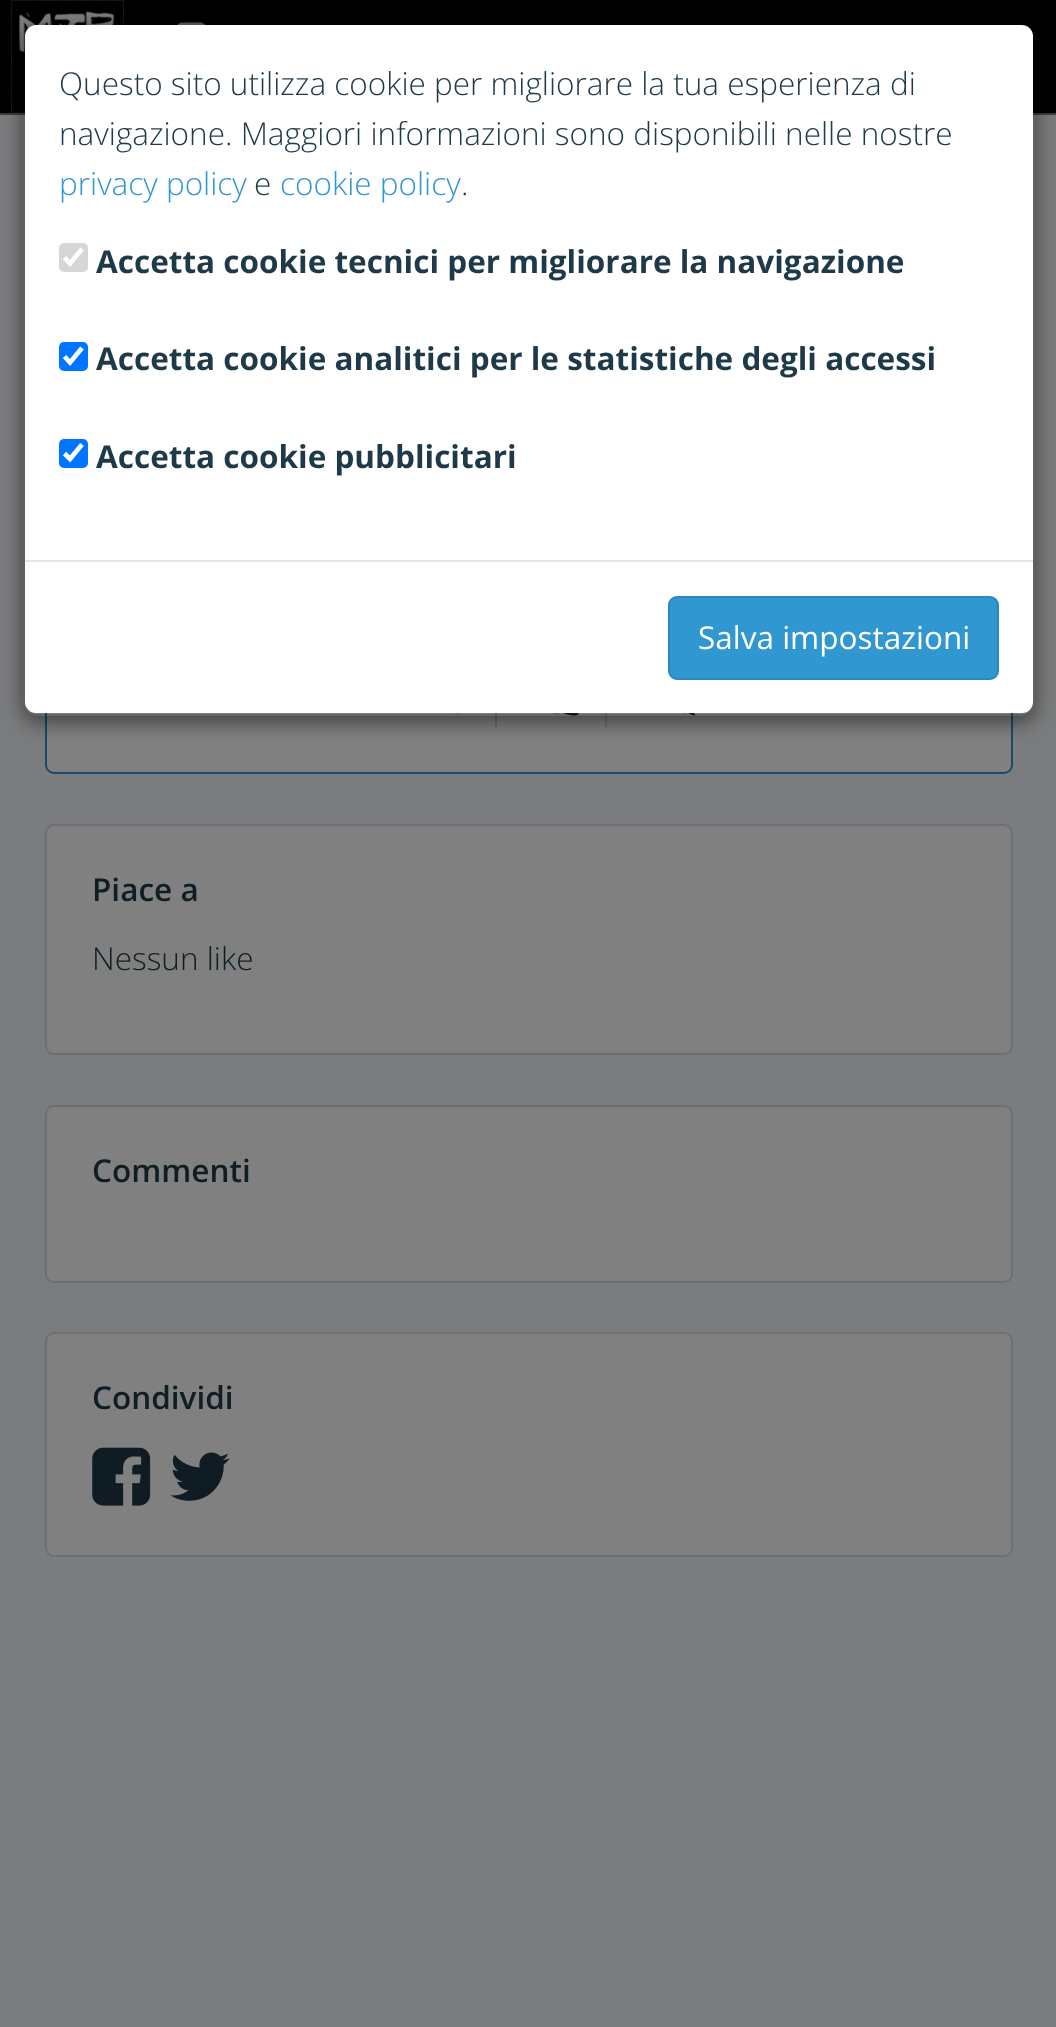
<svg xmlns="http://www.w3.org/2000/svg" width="1056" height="2027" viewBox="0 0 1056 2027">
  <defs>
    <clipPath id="clip1"><path d="M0 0H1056V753H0ZM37 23H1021C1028.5 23 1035 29.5 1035 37V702C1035 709.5 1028.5 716 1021 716H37C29.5 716 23 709.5 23 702V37C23 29.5 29.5 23 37 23Z" clip-rule="evenodd"/></clipPath>
  </defs>
  <rect width="100%" height="100%" fill="rgb(123,124,125)"/>
  <rect x="0" y="0" width="1056" height="113" fill="rgb(0,0,0)"/>
  <rect x="0" y="113" width="1056" height="2" fill="rgb(60,60,60)"/>
  <image x="11" y="0" width="113" height="113" href="pic1.png"/>
  <image x="177" y="22" width="29" height="3" href="pic2.png"/>
  <rect x="46" y="159" width="966" height="614" rx="8" fill="rgb(128,128,128)" stroke="rgb(24,76,105)" stroke-width="2"/>
  <rect x="495" y="713" width="2" height="14" fill="rgb(106,110,112)"/>
  <image x="454" y="713" width="6" height="1" href="pic3.png"/>
  <rect x="605" y="713" width="2" height="14" fill="rgb(106,110,112)"/>
  <image x="554" y="713" width="25" height="3" href="pic4.png"/>
  <image x="682" y="713" width="14" height="3" href="pic5.png"/>
  <g clip-path="url(#clip1)">
    <rect x="23" y="29" width="1012" height="693" rx="14" fill="rgba(0,0,0,0.5)" filter="blur(10px)"/>
  </g>
  <rect x="25" y="25" width="1008" height="688" rx="11" fill="rgb(255,255,255)"/>
  <rect x="24" y="24" width="1010" height="691" rx="13" fill="none" stroke="rgba(0,0,0,0.2)" stroke-width="2"/>
  <g font-family="Open Sans" font-size="31.5" font-weight="300" fill="rgb(30,57,72)">
    <text>
      <tspan x="59" y="95">Questo sito utilizza cookie per migliorare la tua esperienza di</tspan>
      <tspan x="59" y="145">navigazione. Maggiori informazioni sono disponibili nelle nostre</tspan>
    </text>
  </g>
  <text x="59" y="195" font-family="Open Sans" font-size="31.5" font-weight="300" fill="rgb(48,151,209)">privacy policy</text>
  <text x="254" y="195" font-family="Open Sans" font-size="31.5" font-weight="300" fill="rgb(30,57,72)">e</text>
  <text x="280" y="195" font-family="Open Sans" font-size="31.5" font-weight="300" fill="rgb(48,151,209)">cookie policy</text>
  <text x="461" y="195" font-family="Open Sans" font-size="31.5" font-weight="300" fill="rgb(30,57,72)">.</text>
  <rect x="59" y="243" width="29" height="29" rx="5" fill="rgb(214,214,214)"/>
  <path d="M64.5 257.5L70 263.5L82 249" fill="none" stroke="rgb(255,255,255)" stroke-width="4.7"/>
  <text x="96" y="273" font-family="Open Sans" font-size="31.5" font-weight="bold" fill="rgb(30,57,72)">Accetta cookie tecnici per migliorare la navigazione</text>
  <rect x="59" y="342" width="29" height="29" rx="5" fill="rgb(0,117,255)"/>
  <path d="M64.5 356.5L70 362.5L82 348" fill="none" stroke="rgb(255,255,255)" stroke-width="4.7"/>
  <text x="96" y="370" font-family="Open Sans" font-size="31.5" font-weight="bold" fill="rgb(30,57,72)">Accetta cookie analitici per le statistiche degli accessi</text>
  <rect x="59" y="439" width="29" height="29" rx="5" fill="rgb(0,117,255)"/>
  <path d="M64.5 453.5L70 459L82 444.5" fill="none" stroke="rgb(255,255,255)" stroke-width="4.7"/>
  <text x="96" y="468" font-family="Open Sans" font-size="31.5" font-weight="bold" fill="rgb(30,57,72)">Accetta cookie pubblicitari</text>
  <rect x="25" y="560" width="1008" height="2" fill="rgb(229,229,229)"/>
  <rect x="669" y="597" width="329" height="82" rx="8" fill="rgb(48,151,209)" stroke="rgb(42,136,189)" stroke-width="2"/>
  <text x="698" y="649" font-family="Open Sans" font-size="31.5" fill="rgb(255,255,255)">Salva impostazioni</text>
  <rect x="46" y="825" width="966" height="229" rx="8" fill="rgb(128,128,128)" stroke="rgb(106,112,117)" stroke-width="2"/>
  <text x="92" y="901" font-family="Open Sans" font-size="31.5" font-weight="600" fill="rgb(15,29,36)">Piace a</text>
  <text x="92" y="970" font-family="Open Sans" font-size="31.5" font-weight="300" fill="rgb(15,29,36)">Nessun like</text>
  <rect x="46" y="1106" width="966" height="176" rx="8" fill="rgb(128,128,128)" stroke="rgb(106,112,117)" stroke-width="2"/>
  <text x="92" y="1182" font-family="Open Sans" font-size="31.5" font-weight="600" fill="rgb(15,29,36)">Commenti</text>
  <rect x="46" y="1333" width="966" height="223" rx="8" fill="rgb(128,128,128)" stroke="rgb(106,112,117)" stroke-width="2"/>
  <text x="92" y="1409" font-family="Open Sans" font-size="31.5" font-weight="600" fill="rgb(15,29,36)">Condividi</text>
  <image x="92" y="1447" width="59" height="59" href="pic6.png"/>
  <image x="170" y="1452" width="60" height="49" href="pic7.png"/>
</svg>
